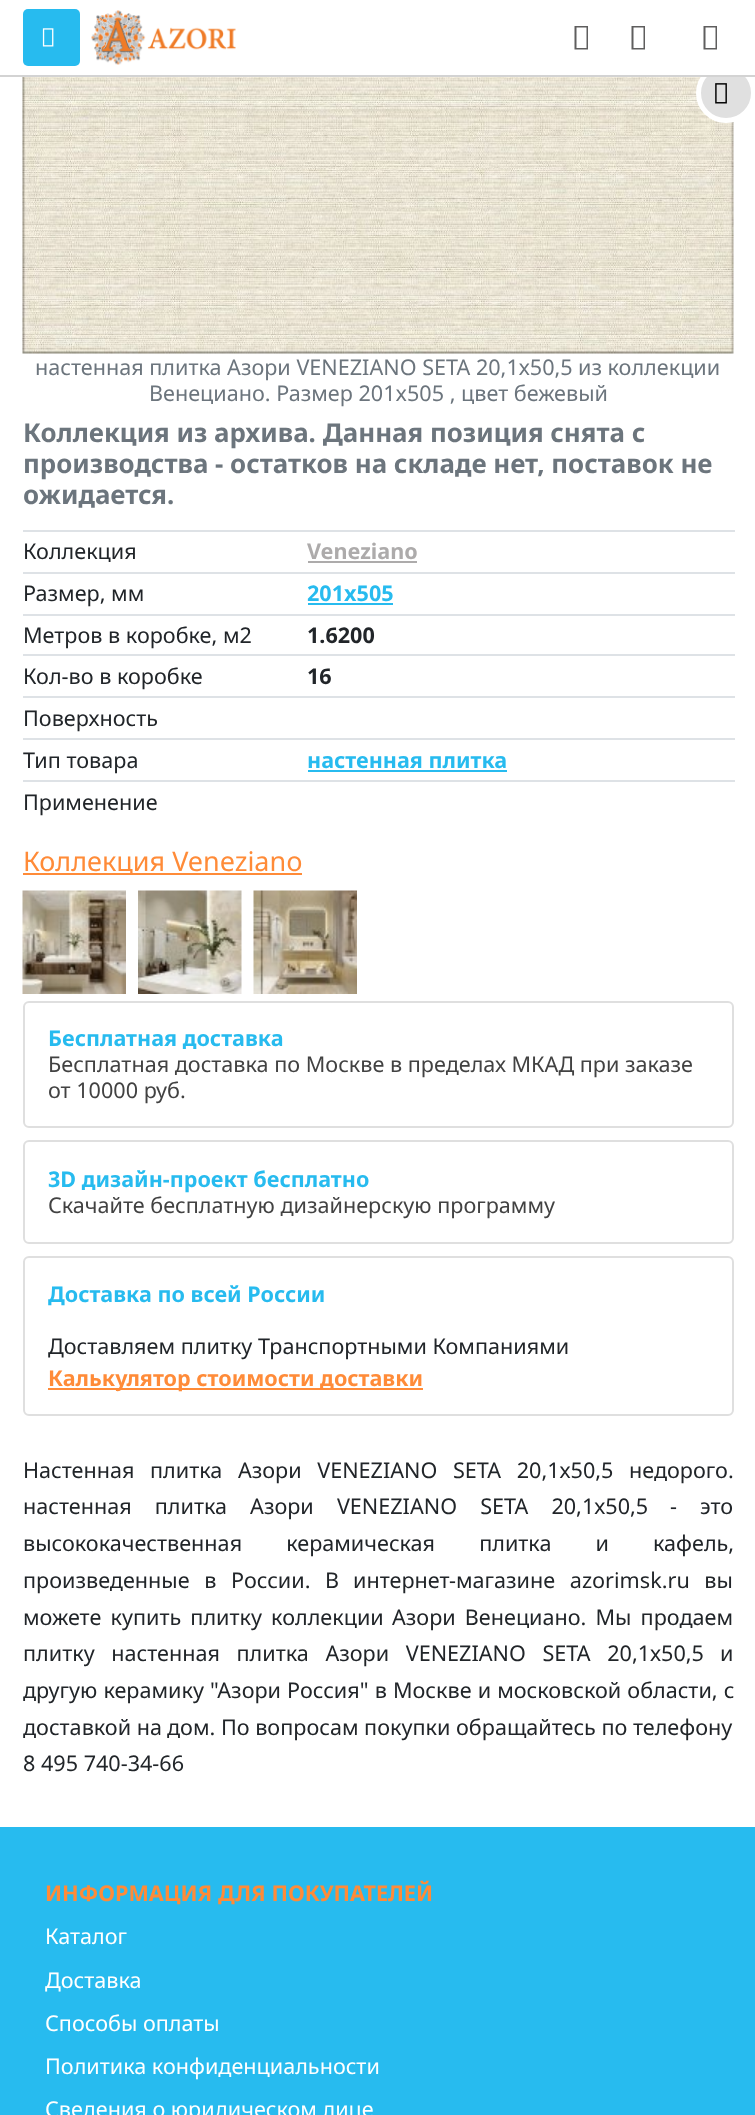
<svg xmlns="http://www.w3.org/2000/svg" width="755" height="2115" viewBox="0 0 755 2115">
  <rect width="100%" height="100%" fill="rgb(255,255,255)"/>
  <image x="22" y="77" width="712" height="277" href="pic4.png"/>
  <circle cx="726" cy="93" r="27.5" fill="rgb(224,224,224)" stroke="rgb(255,255,255)" stroke-width="5"/>
  <rect x="702" y="63" width="48" height="12" fill="rgb(255,255,255)"/>
  <rect x="0" y="75" width="755" height="2" fill="rgb(211,211,211)"/>
  <rect x="23" y="9" width="57" height="57" rx="5" fill="rgb(39,187,239)"/>
  <image x="42" y="28" width="12" height="19" href="pic1.png"/>
  <image x="91" y="10" width="145" height="55" href="pic2.png"/>
  <path d="M574.5 49.5V26H588V49.5ZM576.5 48H586.5V27.5H576.5Z" fill="rgb(95,94,94)"/>
  <path d="M631.5 49.5V26H645V49.5ZM633.5 48H643.5V27.5H633.5Z" fill="rgb(95,94,94)"/>
  <path d="M703.5 49.5V26H717V49.5ZM705.5 48H715.5V27.5H705.5Z" fill="rgb(95,94,94)"/>
  <image x="715" y="83" width="12" height="21" href="pic3.png"/>
  <g font-family="Noto Sans" font-size="21.6" fill="rgb(108,117,125)">
    <text x="35" y="375">настенная плитка Азори VENEZIANO SETA 20,1х50,5</text>
    <text x="578" y="375">из коллекции</text>
    <text x="149" y="401">Венециано. Размер 201x505 , цвет бежевый</text>
  </g>
  <g font-family="Noto Sans" font-size="25.9" font-weight="bold" fill="rgb(108,117,125)">
    <text>
      <tspan x="23" y="442">Коллекция из архива. Данная позиция снята с</tspan>
      <tspan x="23" y="473">производства - остатков на складе нет, поставок не</tspan>
      <tspan x="23" y="504">ожидается.</tspan>
    </text>
  </g>
  <text x="23" y="559" font-family="Noto Sans" font-size="21.6" fill="rgb(33,37,41)">Коллекция</text>
  <rect x="23" y="530" width="712" height="2" fill="rgb(222,226,230)"/>
  <text x="307" y="559" font-family="Noto Sans" font-size="21.6" font-weight="bold" fill="rgb(173,171,171)">Veneziano</text>
  <rect x="308" y="561" width="109" height="2" fill="rgb(173,171,171)"/>
  <text x="23" y="601" font-family="Noto Sans" font-size="21.6" fill="rgb(33,37,41)">Размер, мм</text>
  <rect x="23" y="572" width="712" height="2" fill="rgb(222,226,230)"/>
  <text x="307" y="601" font-family="Noto Sans" font-size="21.6" font-weight="bold" fill="rgb(39,187,239)">201x505</text>
  <rect x="308" y="603" width="85" height="2" fill="rgb(39,187,239)"/>
  <text x="23" y="643" font-family="Noto Sans" font-size="21.6" fill="rgb(33,37,41)">Метров в коробке, м2</text>
  <rect x="23" y="614" width="712" height="2" fill="rgb(222,226,230)"/>
  <text x="307" y="643" font-family="Noto Sans" font-size="21.6" font-weight="bold" fill="rgb(33,37,41)">1.6200</text>
  <text x="23" y="684" font-family="Noto Sans" font-size="21.6" fill="rgb(33,37,41)">Кол-во в коробке</text>
  <rect x="23" y="654" width="712" height="2" fill="rgb(222,226,230)"/>
  <text x="307" y="684" font-family="Noto Sans" font-size="21.6" font-weight="bold" fill="rgb(33,37,41)">16</text>
  <rect x="23" y="696" width="712" height="2" fill="rgb(222,226,230)"/>
  <g font-family="Noto Sans" font-size="21.6" fill="rgb(33,37,41)">
    <text>
      <tspan x="23" y="726">Поверхность</tspan>
      <tspan x="23" y="768">Тип товара</tspan>
    </text>
  </g>
  <rect x="23" y="738" width="712" height="2" fill="rgb(222,226,230)"/>
  <text x="307" y="768" font-family="Noto Sans" font-size="21.6" font-weight="bold" fill="rgb(39,187,239)">настенная плитка</text>
  <rect x="308" y="770" width="199" height="2" fill="rgb(39,187,239)"/>
  <rect x="23" y="780" width="712" height="2" fill="rgb(222,226,230)"/>
  <text x="23" y="810" font-family="Noto Sans" font-size="21.6" fill="rgb(33,37,41)">Применение</text>
  <rect x="23" y="873" width="279" height="2" fill="rgb(255,139,56)"/>
  <text x="23" y="871" font-family="Noto Sans" font-size="27" fill="rgb(255,139,56)">Коллекция Veneziano</text>
  <image x="22" y="890" width="104" height="104" href="pic5.png"/>
  <image x="138" y="890" width="104" height="104" href="pic6.png"/>
  <image x="253" y="890" width="104" height="104" href="pic7.png"/>
  <rect x="24" y="1002" width="709" height="125" rx="5" fill="none" stroke="rgb(223,223,223)" stroke-width="2"/>
  <text x="48" y="1046" font-family="Noto Sans" font-size="21.6" font-weight="bold" fill="rgb(39,187,239)">Бесплатная доставка</text>
  <g font-family="Noto Sans" font-size="21.6" fill="rgb(66,66,66)">
    <text>
      <tspan x="48" y="1072">Бесплатная доставка по Москве в пределах МКАД при заказе</tspan>
      <tspan x="48" y="1098">от 10000 руб.</tspan>
    </text>
  </g>
  <rect x="24" y="1141" width="709" height="102" rx="5" fill="none" stroke="rgb(223,223,223)" stroke-width="2"/>
  <text x="48" y="1187" font-family="Noto Sans" font-size="21.6" font-weight="bold" fill="rgb(39,187,239)">3D дизайн-проект бесплатно</text>
  <text x="48" y="1213" font-family="Noto Sans" font-size="21.6" fill="rgb(66,66,66)">Скачайте бесплатную дизайнерскую программу</text>
  <rect x="24" y="1257" width="709" height="158" rx="5" fill="none" stroke="rgb(223,223,223)" stroke-width="2"/>
  <text x="48" y="1302" font-family="Noto Sans" font-size="21.6" font-weight="bold" fill="rgb(39,187,239)">Доставка по всей России</text>
  <text x="48" y="1354" font-family="Noto Sans" font-size="21.6" fill="rgb(33,37,41)">Доставляем плитку Транспортными Компаниями</text>
  <rect x="48" y="1388" width="375" height="2" fill="rgb(255,139,56)"/>
  <text x="48" y="1386" font-family="Noto Sans" font-size="21.6" font-weight="bold" fill="rgb(255,139,56)">Калькулятор стоимости доставки</text>
  <g font-family="Noto Sans" font-size="21.6" fill="rgb(33,37,41)">
    <text x="23" y="1478" word-spacing="10">Настенная плитка Азори VENEZIANO SETA 20,1х50,5</text>
    <text x="629" y="1478">недорого.</text>
    <text x="23" y="1514" word-spacing="17.5">настенная плитка Азори VENEZIANO SETA 20,1х50,5</text>
    <text x="670" y="1514">-</text>
    <text x="700" y="1514">это</text>
    <text>
      <tspan x="23" y="1551" word-spacing="38.5">высококачественная керамическая плитка и кафель,</tspan>
      <tspan x="23" y="1588" word-spacing="9">произведенные в России. В</tspan>
    </text>
    <text x="353" y="1588" word-spacing="9">интернет-магазине azorimsk.ru вы</text>
    <text x="23" y="1625" word-spacing="3.5">можете купить плитку коллекции</text>
    <text x="392" y="1625" word-spacing="3.5">Азори Венециано. Мы продаем</text>
    <text x="23" y="1661" word-spacing="11">плитку настенная плитка Азори VENEZIANO SETA 20,1х50,5</text>
    <text x="720" y="1661">и</text>
    <text>
      <tspan x="23" y="1698" word-spacing="0.5">другую керамику "Азори Россия" в Москве и московской области, с</tspan>
      <tspan x="23" y="1735">доставкой на</tspan>
    </text>
    <text x="167" y="1735">дом. По вопросам покупки обращайтесь по телефону</text>
    <text x="23" y="1771">8 495 740-34-66</text>
  </g>
  <rect x="0" y="1827" width="755" height="288" fill="rgb(39,187,239)"/>
  <text x="45" y="1901" font-family="Noto Sans" font-size="21.6" font-weight="bold" fill="rgb(255,139,56)">ИНФОРМАЦИЯ ДЛЯ ПОКУПАТЕЛЕЙ</text>
  <g font-family="Noto Sans" font-size="21.6" fill="rgb(255,255,255)">
    <text x="45" y="1944">Каталог</text>
    <text>
      <tspan x="45" y="1988">Доставка</tspan>
      <tspan x="45" y="2031">Способы оплаты</tspan>
      <tspan x="45" y="2074">Политика конфиденциальности</tspan>
      <tspan x="45" y="2117">Сведения о юридическом лице</tspan>
    </text>
  </g>
</svg>
